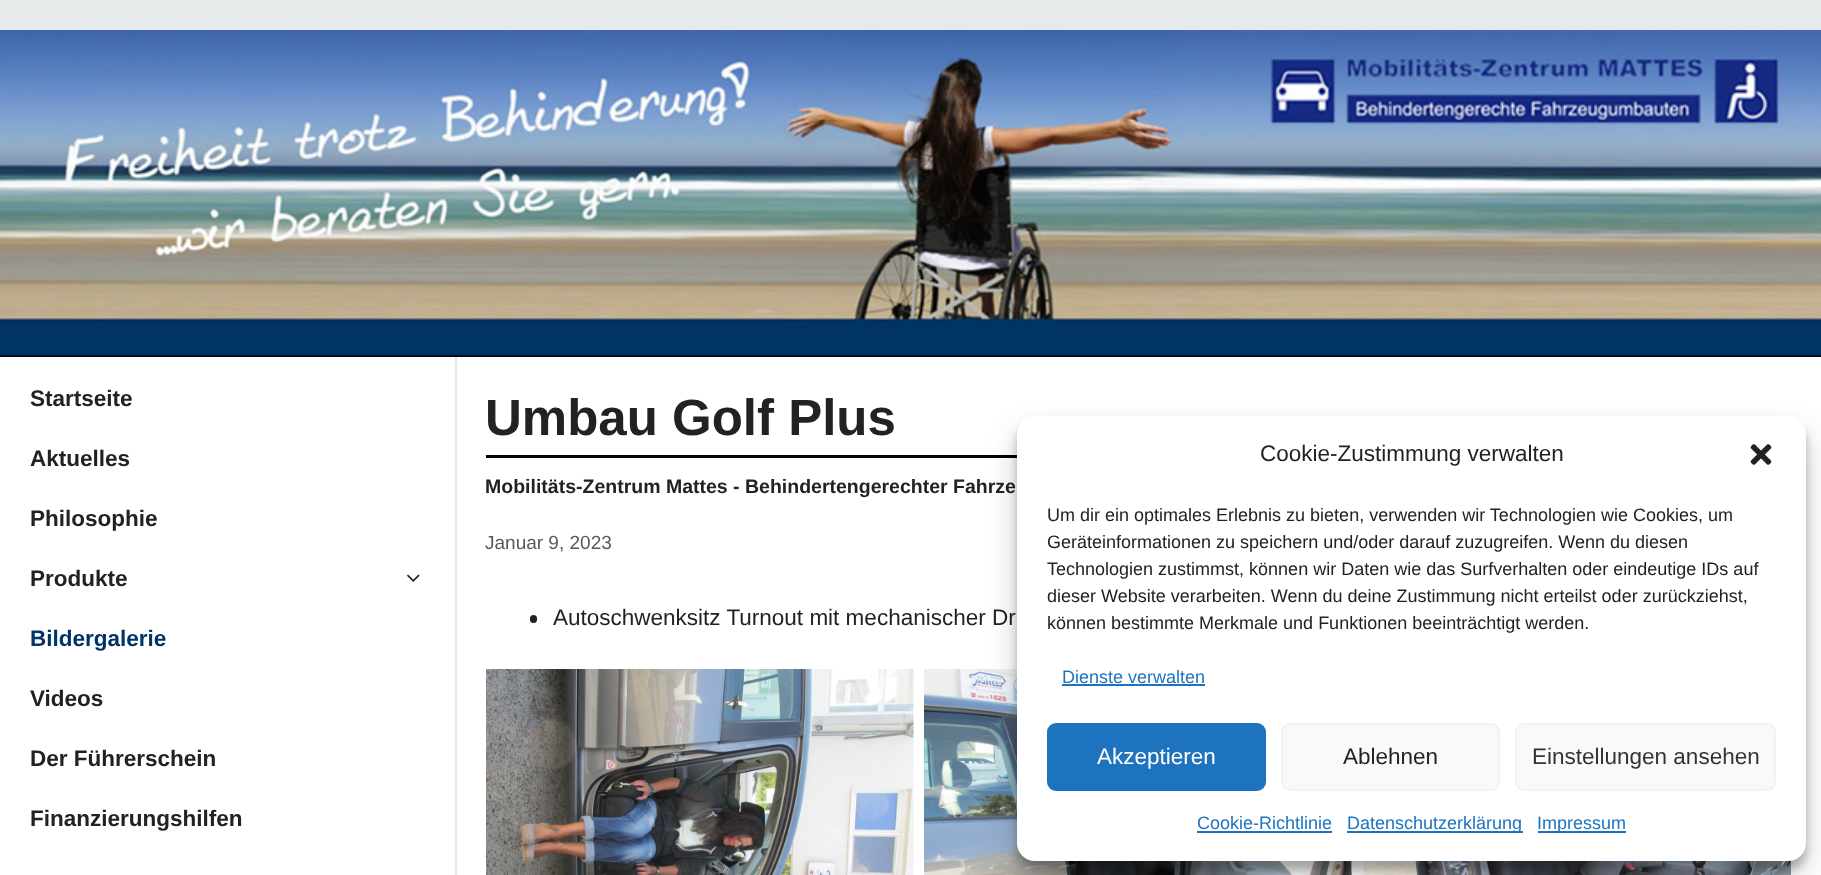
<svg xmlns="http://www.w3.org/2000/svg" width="1821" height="875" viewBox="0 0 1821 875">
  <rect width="100%" height="100%" fill="rgb(229,235,235)"/>
  <image x="0" y="30" width="1821" height="327" href="pic1.png"/>
  <rect x="0" y="357" width="1821" height="518" fill="rgb(255,255,255)"/>
  <rect x="455" y="357" width="2" height="518" fill="rgb(229,235,235)"/>
  <g font-family="Liberation Sans" font-size="22.5" font-weight="bold" fill="rgb(34,34,34)">
    <text x="30" y="406">Startseite</text>
    <text x="30" y="466">Aktuelles</text>
    <text x="30" y="526">Philosophie</text>
    <text x="30" y="586">Produkte</text>
  </g>
  <image x="407" y="574" width="13" height="8" href="pic2.png"/>
  <text x="30" y="646" font-family="Liberation Sans" font-size="22.5" font-weight="bold" fill="rgb(0,51,102)">Bildergalerie</text>
  <g font-family="Liberation Sans" font-size="22.5" font-weight="bold" fill="rgb(34,34,34)">
    <text x="30" y="706">Videos</text>
    <text x="30" y="766">Der Führerschein</text>
    <text x="30" y="826">Finanzierungshilfen</text>
  </g>
  <text x="485" y="435" font-family="Liberation Sans" font-size="51" font-weight="bold" fill="rgb(34,34,34)">Umbau Golf Plus</text>
  <rect x="486" y="455" width="531" height="3" fill="rgb(0,0,0)"/>
  <text x="485" y="493" font-family="Liberation Sans" font-size="19.5" font-weight="bold" fill="rgb(34,34,34)">Mobilitäts-Zentrum Mattes - Behindertengerechter Fahrze</text>
  <text x="485" y="549" font-family="Liberation Sans" font-size="19" fill="rgb(87,87,96)">Januar 9, 2023</text>
  <rect x="530" y="615" width="7" height="8" rx="3.5" fill="rgb(34,34,34)"/>
  <text x="553" y="625" font-family="Liberation Sans" font-size="22.5" fill="rgb(34,34,34)">Autoschwenksitz Turnout mit mechanischer Dr</text>
  <image x="486" y="669" width="428" height="206" href="pic3.png"/>
  <image x="924" y="669" width="428" height="206" href="pic4.png"/>
  <image x="1363" y="860" width="428" height="15" href="pic5.png"/>
  <rect x="1017" y="425" width="789" height="445" rx="18" fill="rgba(0,0,0,0.23)" filter="blur(4.5px)"/>
  <rect x="1017" y="431" width="789" height="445" rx="18" fill="rgba(0,0,0,0.19)" filter="blur(15px)"/>
  <rect x="1017" y="416" width="789" height="445" rx="18" fill="rgb(255,255,255)"/>
  <text x="1260" y="461" font-family="Liberation Sans" font-size="22.5" fill="rgb(34,34,34)">Cookie-Zustimmung verwalten</text>
  <image x="1750" y="444" width="22" height="21" href="pic6.png"/>
  <g font-family="Liberation Sans" font-size="18" fill="rgb(34,34,34)">
    <text>
      <tspan x="1047" y="521">Um dir ein optimales Erlebnis zu bieten, verwenden wir Technologien wie Cookies, um</tspan>
      <tspan x="1047" y="548">Geräteinformationen zu speichern und/oder darauf zuzugreifen. Wenn du diesen</tspan>
      <tspan x="1047" y="575">Technologien zustimmst, können wir Daten wie das Surfverhalten oder eindeutige IDs auf</tspan>
      <tspan x="1047" y="602">dieser Website verarbeiten. Wenn du deine Zustimmung nicht erteilst oder zurückziehst,</tspan>
      <tspan x="1047" y="629">können bestimmte Merkmale und Funktionen beeinträchtigt werden.</tspan>
    </text>
  </g>
  <text x="1062" y="683" font-family="Liberation Sans" font-size="18" fill="rgb(30,115,190)">Dienste verwalten</text>
  <rect x="1062" y="684" width="143" height="2" fill="rgb(30,115,190)"/>
  <rect x="1048" y="724" width="217" height="66" rx="8" fill="rgb(30,115,190)" stroke="rgb(30,115,190)" stroke-width="2"/>
  <text x="1097" y="764" font-family="Liberation Sans" font-size="22.5" fill="rgb(255,255,255)">Akzeptieren</text>
  <rect x="1282" y="724" width="217" height="66" rx="8" fill="rgb(249,249,249)" stroke="rgb(242,242,242)" stroke-width="2"/>
  <text x="1343" y="764" font-family="Liberation Sans" font-size="22.5" fill="rgb(34,34,34)">Ablehnen</text>
  <rect x="1516" y="724" width="259" height="66" rx="8" fill="rgb(249,249,249)" stroke="rgb(242,242,242)" stroke-width="2"/>
  <text x="1532" y="764" font-family="Liberation Sans" font-size="22.5" fill="rgb(51,51,51)">Einstellungen ansehen</text>
  <text x="1197" y="829" font-family="Liberation Sans" font-size="18" fill="rgb(30,115,190)">Cookie-Richtlinie</text>
  <rect x="1197" y="831" width="135" height="2" fill="rgb(30,115,190)"/>
  <rect x="1347" y="831" width="176" height="2" fill="rgb(30,115,190)"/>
  <text x="1347" y="829" font-family="Liberation Sans" font-size="18" fill="rgb(30,115,190)">Datenschutzerklärung</text>
  <rect x="1538" y="831" width="88" height="2" fill="rgb(30,115,190)"/>
  <text x="1537" y="829" font-family="Liberation Sans" font-size="18" fill="rgb(30,115,190)">Impressum</text>
</svg>
